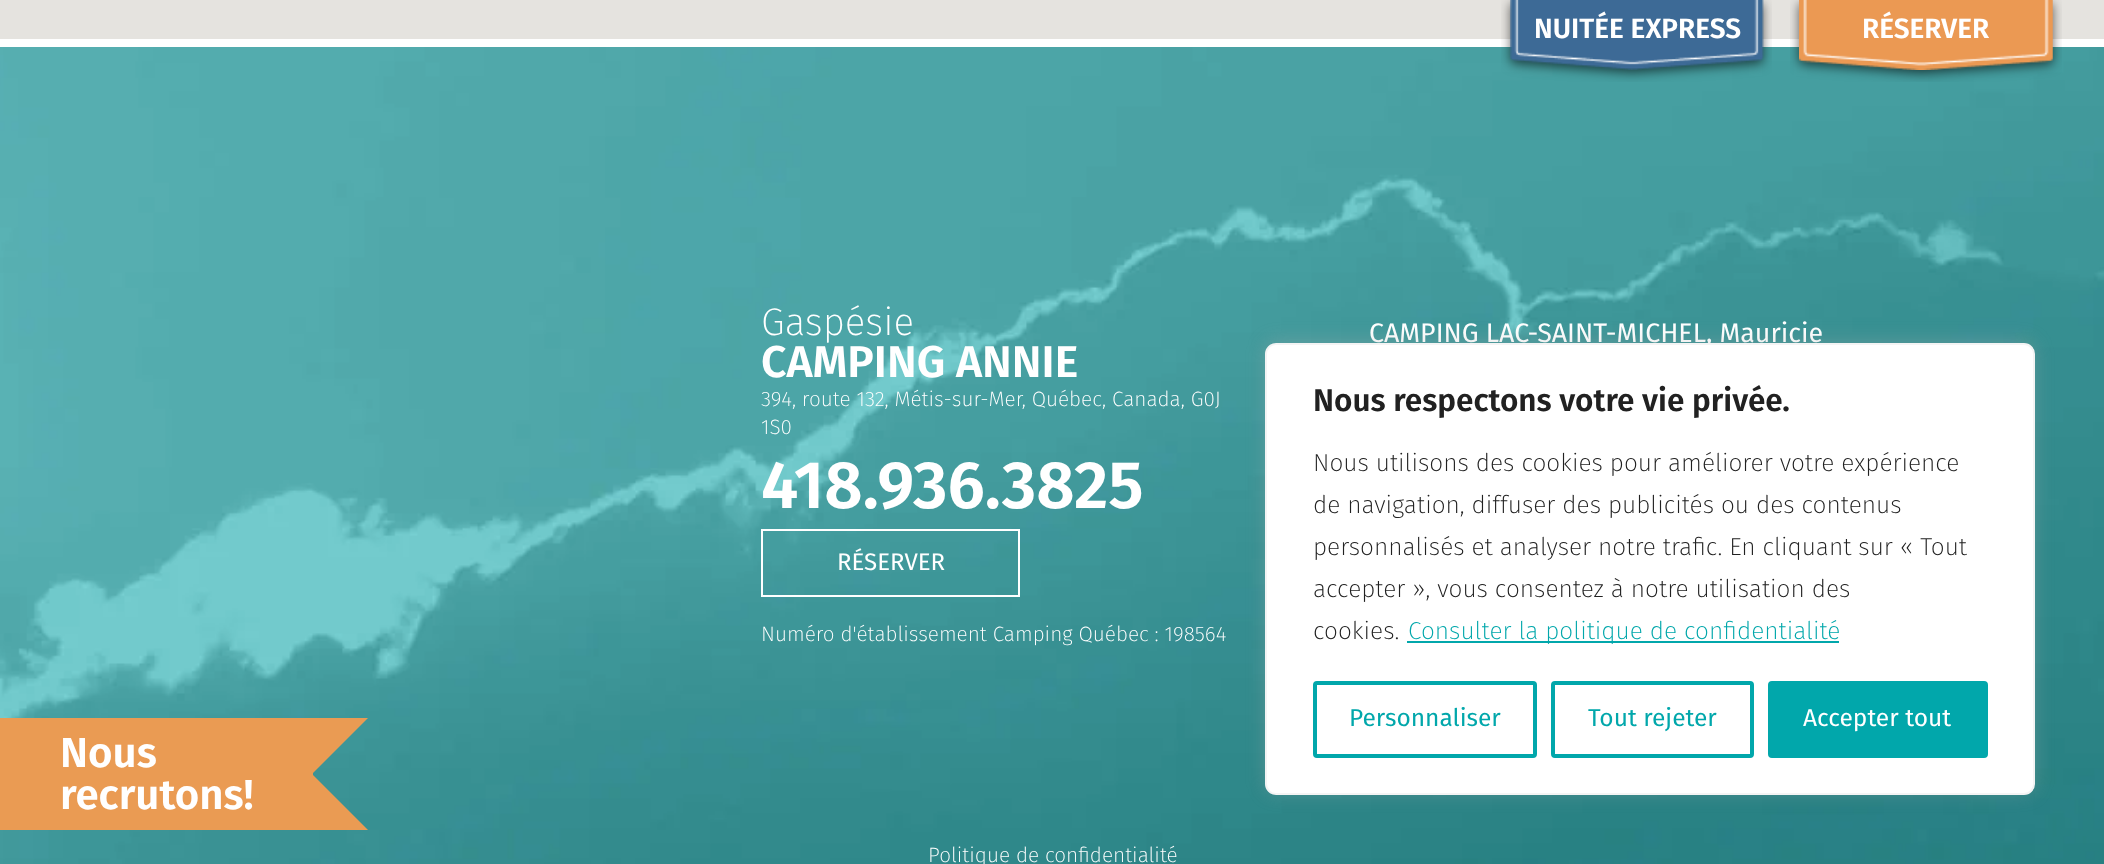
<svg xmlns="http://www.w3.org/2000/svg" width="2104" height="864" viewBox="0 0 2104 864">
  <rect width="100%" height="100%" fill="rgb(255,255,255)"/>
  <rect x="0" y="0" width="2104" height="39" fill="rgb(229,227,223)"/>
  <image x="0" y="47" width="2104" height="817" href="pic3.png"/>
  <image x="1501" y="0" width="271" height="82" href="pic1.png"/>
  <text x="1534" y="38" font-family="Fira Sans" font-size="28" font-weight="600" fill="rgb(255,255,255)">NUITÉE EXPRESS</text>
  <image x="1790" y="0" width="272" height="82" href="pic2.png"/>
  <text x="1862" y="38" font-family="Fira Sans" font-size="28" font-weight="600" fill="rgb(255,255,255)">RÉSERVER</text>
  <rect x="0" y="718" width="313" height="112" fill="rgb(234,155,83)"/>
  <g font-family="Fira Sans" font-size="42" font-weight="600" fill="rgb(255,255,255)">
    <text>
      <tspan x="60" y="767">Nous</tspan>
      <tspan x="60" y="809">recrutons!</tspan>
    </text>
  </g>
  <path d="M312 774V718H368Z" fill="rgb(234,155,83)"/>
  <path d="M312 830V774L368 830Z" fill="rgb(234,155,83)"/>
  <text x="761" y="335" font-family="Fira Sans" font-size="38.5" font-weight="200" fill="rgb(255,255,255)">Gaspésie</text>
  <text x="761" y="377" font-family="Fira Sans" font-size="44.5" font-weight="600" fill="rgb(255,255,255)">CAMPING ANNIE</text>
  <g font-family="Fira Sans" font-size="20.8" font-weight="200" fill="rgb(255,255,255)">
    <text>
      <tspan x="761" y="406">394, route 132, Métis-sur-Mer, Québec, Canada, G0J</tspan>
      <tspan x="761" y="434">1S0</tspan>
    </text>
  </g>
  <text x="761" y="508" font-family="Fira Sans" font-size="67" font-weight="600" fill="rgb(255,255,255)">418.936.3825</text>
  <rect x="762" y="530" width="257" height="66" fill="none" stroke="rgb(255,255,255)" stroke-width="2"/>
  <text x="837" y="570" font-family="Fira Sans" font-size="24" fill="rgb(255,255,255)">RÉSERVER</text>
  <text x="761" y="641" font-family="Fira Sans" font-size="20.8" font-weight="200" fill="rgb(255,255,255)">Numéro d'établissement Camping Québec : 198564</text>
  <text x="1369" y="342" font-family="Fira Sans" font-size="26.75" fill="rgb(255,255,255)">CAMPING LAC-SAINT-MICHEL, Mauricie</text>
  <text x="928" y="862" font-family="Fira Sans" font-size="20.8" font-weight="200" fill="rgb(255,255,255)">Politique de confidentialité</text>
  <rect x="1265" y="341" width="770" height="452" rx="11" fill="rgba(172,171,171,0.3)" filter="blur(9px)"/>
  <rect x="1266" y="344" width="768" height="450" rx="10" fill="rgb(255,255,255)" stroke="rgb(244,244,244)" stroke-width="2"/>
  <text x="1313" y="411" font-family="Fira Sans" font-size="31.5" font-weight="600" fill="rgb(33,33,33)">Nous respectons votre vie privée.</text>
  <g font-family="Fira Sans" font-size="24.5" font-weight="200" fill="rgb(33,33,33)">
    <text>
      <tspan x="1313" y="471">Nous utilisons des cookies pour améliorer votre expérience</tspan>
      <tspan x="1313" y="513">de navigation, diffuser des publicités ou des contenus</tspan>
      <tspan x="1313" y="555">personnalisés et analyser notre trafic. En cliquant sur « Tout</tspan>
      <tspan x="1313" y="597">accepter », vous consentez à notre utilisation des</tspan>
      <tspan x="1313" y="639">cookies.</tspan>
    </text>
  </g>
  <rect x="1407" y="641" width="432" height="2" fill="rgb(1,167,171)"/>
  <text x="1408" y="639" font-family="Fira Sans" font-size="24.5" font-weight="200" fill="rgb(1,167,171)">Consulter la politique de confidentialité</text>
  <rect x="1315" y="683" width="220" height="73" rx="2" fill="none" stroke="rgb(1,167,171)" stroke-width="4"/>
  <text x="1349" y="726" font-family="Fira Sans" font-size="24.5" fill="rgb(1,167,171)">Personnaliser</text>
  <rect x="1553" y="683" width="199" height="73" rx="2" fill="none" stroke="rgb(1,167,171)" stroke-width="4"/>
  <text x="1588" y="726" font-family="Fira Sans" font-size="24.5" fill="rgb(1,167,171)">Tout rejeter</text>
  <rect x="1770" y="683" width="216" height="73" rx="2" fill="rgb(1,167,171)" stroke="rgb(1,167,171)" stroke-width="4"/>
  <text x="1803" y="726" font-family="Fira Sans" font-size="24.5" fill="rgb(255,255,255)">Accepter tout</text>
</svg>
